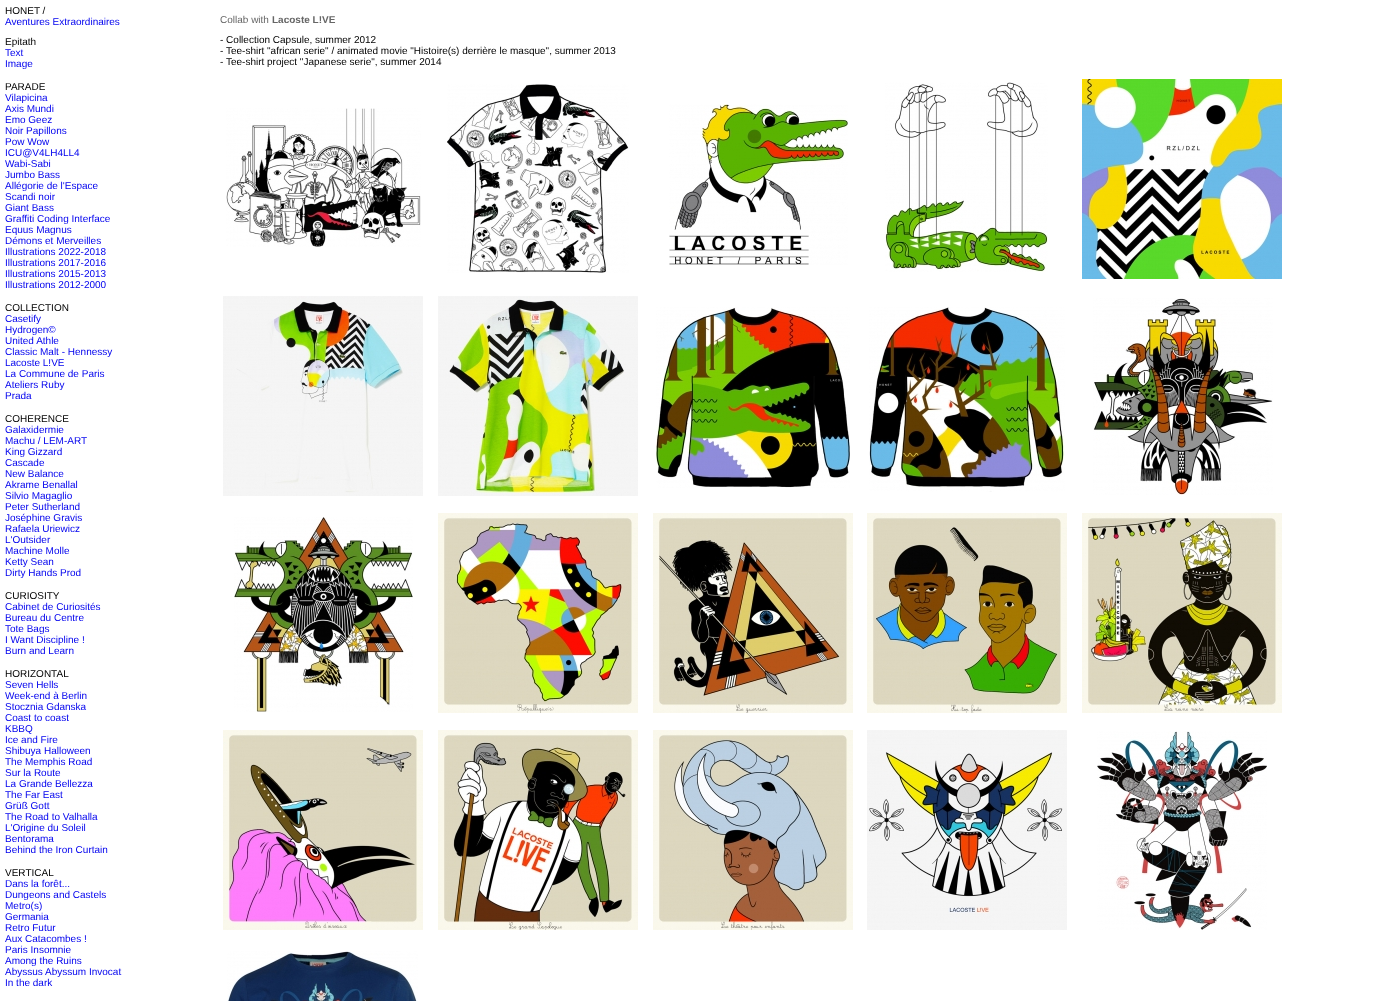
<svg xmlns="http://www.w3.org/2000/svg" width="1379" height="1001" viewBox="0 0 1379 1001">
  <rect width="100%" height="100%" fill="rgb(255,255,255)"/>
  <text x="5" y="14" font-family="Liberation Sans" font-size="10" fill="rgb(0,0,0)">HONET /</text>
  <text x="5" y="25" font-family="Liberation Sans" font-size="10" fill="rgb(0,0,238)">Aventures Extraordinaires</text>
  <text x="5" y="45" font-family="Liberation Sans" font-size="10" fill="rgb(0,0,0)">Epitath</text>
  <g font-family="Liberation Sans" font-size="10" fill="rgb(0,0,238)">
    <text>
      <tspan x="5" y="56">Text</tspan>
      <tspan x="5" y="67">Image</tspan>
    </text>
  </g>
  <text x="5" y="90" font-family="Liberation Sans" font-size="10" fill="rgb(0,0,0)">PARADE</text>
  <g font-family="Liberation Sans" font-size="10" fill="rgb(0,0,238)">
    <text>
      <tspan x="5" y="101">Vilapicina</tspan>
      <tspan x="5" y="112">Axis Mundi</tspan>
      <tspan x="5" y="123">Emo Geez</tspan>
      <tspan x="5" y="134">Noir Papillons</tspan>
      <tspan x="5" y="145">Pow Wow</tspan>
      <tspan x="5" y="156">ICU@V4LH4LL4</tspan>
      <tspan x="5" y="167">Wabi-Sabi</tspan>
      <tspan x="5" y="178">Jumbo Bass</tspan>
      <tspan x="5" y="189">Allégorie de l'Espace</tspan>
      <tspan x="5" y="200">Scandi noir</tspan>
      <tspan x="5" y="211">Giant Bass</tspan>
      <tspan x="5" y="222">Graffiti Coding Interface</tspan>
      <tspan x="5" y="233">Equus Magnus</tspan>
      <tspan x="5" y="244">Démons et Merveilles</tspan>
      <tspan x="5" y="255">Illustrations 2022-2018</tspan>
      <tspan x="5" y="266">Illustrations 2017-2016</tspan>
      <tspan x="5" y="277">Illustrations 2015-2013</tspan>
      <tspan x="5" y="288">Illustrations 2012-2000</tspan>
    </text>
  </g>
  <text x="5" y="311" font-family="Liberation Sans" font-size="10" fill="rgb(0,0,0)">COLLECTION</text>
  <g font-family="Liberation Sans" font-size="10" fill="rgb(0,0,238)">
    <text>
      <tspan x="5" y="322">Casetify</tspan>
      <tspan x="5" y="333">Hydrogen©</tspan>
      <tspan x="5" y="344">United Athle</tspan>
      <tspan x="5" y="355">Classic Malt - Hennessy</tspan>
      <tspan x="5" y="366">Lacoste L!VE</tspan>
      <tspan x="5" y="377">La Commune de Paris</tspan>
      <tspan x="5" y="388">Ateliers Ruby</tspan>
      <tspan x="5" y="399">Prada</tspan>
    </text>
  </g>
  <text x="5" y="422" font-family="Liberation Sans" font-size="10" fill="rgb(0,0,0)">COHERENCE</text>
  <g font-family="Liberation Sans" font-size="10" fill="rgb(0,0,238)">
    <text>
      <tspan x="5" y="433">Galaxidermie</tspan>
      <tspan x="5" y="444">Machu / LEM-ART</tspan>
      <tspan x="5" y="455">King Gizzard</tspan>
      <tspan x="5" y="466">Cascade</tspan>
      <tspan x="5" y="477">New Balance</tspan>
      <tspan x="5" y="488">Akrame Benallal</tspan>
      <tspan x="5" y="499">Silvio Magaglio</tspan>
      <tspan x="5" y="510">Peter Sutherland</tspan>
      <tspan x="5" y="521">Joséphine Gravis</tspan>
      <tspan x="5" y="532">Rafaela Uriewicz</tspan>
      <tspan x="5" y="543">L'Outsider</tspan>
      <tspan x="5" y="554">Machine Molle</tspan>
      <tspan x="5" y="565">Ketty Sean</tspan>
      <tspan x="5" y="576">Dirty Hands Prod</tspan>
    </text>
  </g>
  <text x="5" y="599" font-family="Liberation Sans" font-size="10" fill="rgb(0,0,0)">CURIOSITY</text>
  <g font-family="Liberation Sans" font-size="10" fill="rgb(0,0,238)">
    <text>
      <tspan x="5" y="610">Cabinet de Curiosités</tspan>
      <tspan x="5" y="621">Bureau du Centre</tspan>
      <tspan x="5" y="632">Tote Bags</tspan>
      <tspan x="5" y="643">I Want Discipline !</tspan>
      <tspan x="5" y="654">Burn and Learn</tspan>
    </text>
  </g>
  <text x="5" y="677" font-family="Liberation Sans" font-size="10" fill="rgb(0,0,0)">HORIZONTAL</text>
  <g font-family="Liberation Sans" font-size="10" fill="rgb(0,0,238)">
    <text>
      <tspan x="5" y="688">Seven Hells</tspan>
      <tspan x="5" y="699">Week-end à Berlin</tspan>
      <tspan x="5" y="710">Stocznia Gdanska</tspan>
      <tspan x="5" y="721">Coast to coast</tspan>
      <tspan x="5" y="732">KBBQ</tspan>
      <tspan x="5" y="743">Ice and Fire</tspan>
      <tspan x="5" y="754">Shibuya Halloween</tspan>
      <tspan x="5" y="765">The Memphis Road</tspan>
      <tspan x="5" y="776">Sur la Route</tspan>
      <tspan x="5" y="787">La Grande Bellezza</tspan>
      <tspan x="5" y="798">The Far East</tspan>
      <tspan x="5" y="809">Grüß Gott</tspan>
      <tspan x="5" y="820">The Road to Valhalla</tspan>
      <tspan x="5" y="831">L'Origine du Soleil</tspan>
      <tspan x="5" y="842">Bentorama</tspan>
      <tspan x="5" y="853">Behind the Iron Curtain</tspan>
    </text>
  </g>
  <text x="5" y="876" font-family="Liberation Sans" font-size="10" fill="rgb(0,0,0)">VERTICAL</text>
  <g font-family="Liberation Sans" font-size="10" fill="rgb(0,0,238)">
    <text>
      <tspan x="5" y="887">Dans la forêt...</tspan>
      <tspan x="5" y="898">Dungeons and Castels</tspan>
      <tspan x="5" y="909">Metro(s)</tspan>
      <tspan x="5" y="920">Germania</tspan>
      <tspan x="5" y="931">Retro Futur</tspan>
      <tspan x="5" y="942">Aux Catacombes !</tspan>
      <tspan x="5" y="953">Paris Insomnie</tspan>
      <tspan x="5" y="964">Among the Ruins</tspan>
      <tspan x="5" y="975">Abyssus Abyssum Invocat</tspan>
      <tspan x="5" y="986">In the dark</tspan>
    </text>
  </g>
  <text x="220" y="23" font-family="Liberation Sans" font-size="10" fill="rgb(102,102,102)">Collab with</text>
  <text x="272" y="23" font-family="Liberation Sans" font-size="10" font-weight="bold" fill="rgb(102,102,102)">Lacoste L!VE</text>
  <g font-family="Liberation Sans" font-size="10" fill="rgb(0,0,0)">
    <text>
      <tspan x="220" y="43">- Collection Capsule, summer 2012</tspan>
      <tspan x="220" y="54">- Tee-shirt "african serie" / animated movie "Histoire(s) derrière le masque", summer 2013</tspan>
      <tspan x="220" y="65">- Tee-shirt project "Japanese serie", summer 2014</tspan>
    </text>
  </g>
  <image x="226" y="108" width="195" height="139" href="pic1.png"/>
  <image x="447" y="84" width="182" height="189" href="pic2.png"/>
  <image x="669" y="104" width="179" height="161" href="pic3.png"/>
  <image x="885" y="82" width="163" height="190" href="pic4.png"/>
  <image x="1082" y="79" width="200" height="200" href="pic5.png"/>
  <image x="223" y="296" width="200" height="200" href="pic6.png"/>
  <image x="438" y="296" width="200" height="200" href="pic7.png"/>
  <image x="656" y="307" width="194" height="181" href="pic8.png"/>
  <image x="869" y="307" width="196" height="185" href="pic9.png"/>
  <image x="1093" y="298" width="180" height="197" href="pic10.png"/>
  <image x="234" y="517" width="179" height="195" href="pic11.png"/>
  <image x="438" y="513" width="200" height="200" href="pic12.png"/>
  <image x="653" y="513" width="200" height="200" href="pic13.png"/>
  <image x="867" y="513" width="200" height="200" href="pic14.png"/>
  <image x="1082" y="513" width="200" height="200" href="pic15.png"/>
  <image x="223" y="730" width="200" height="200" href="pic16.png"/>
  <image x="438" y="730" width="200" height="200" href="pic17.png"/>
  <image x="653" y="730" width="200" height="200" href="pic18.png"/>
  <image x="867" y="730" width="200" height="200" href="pic19.png"/>
  <image x="1097" y="731" width="170" height="199" href="pic20.png"/>
  <image x="227" y="951" width="191" height="50" href="pic21.png"/>
</svg>
